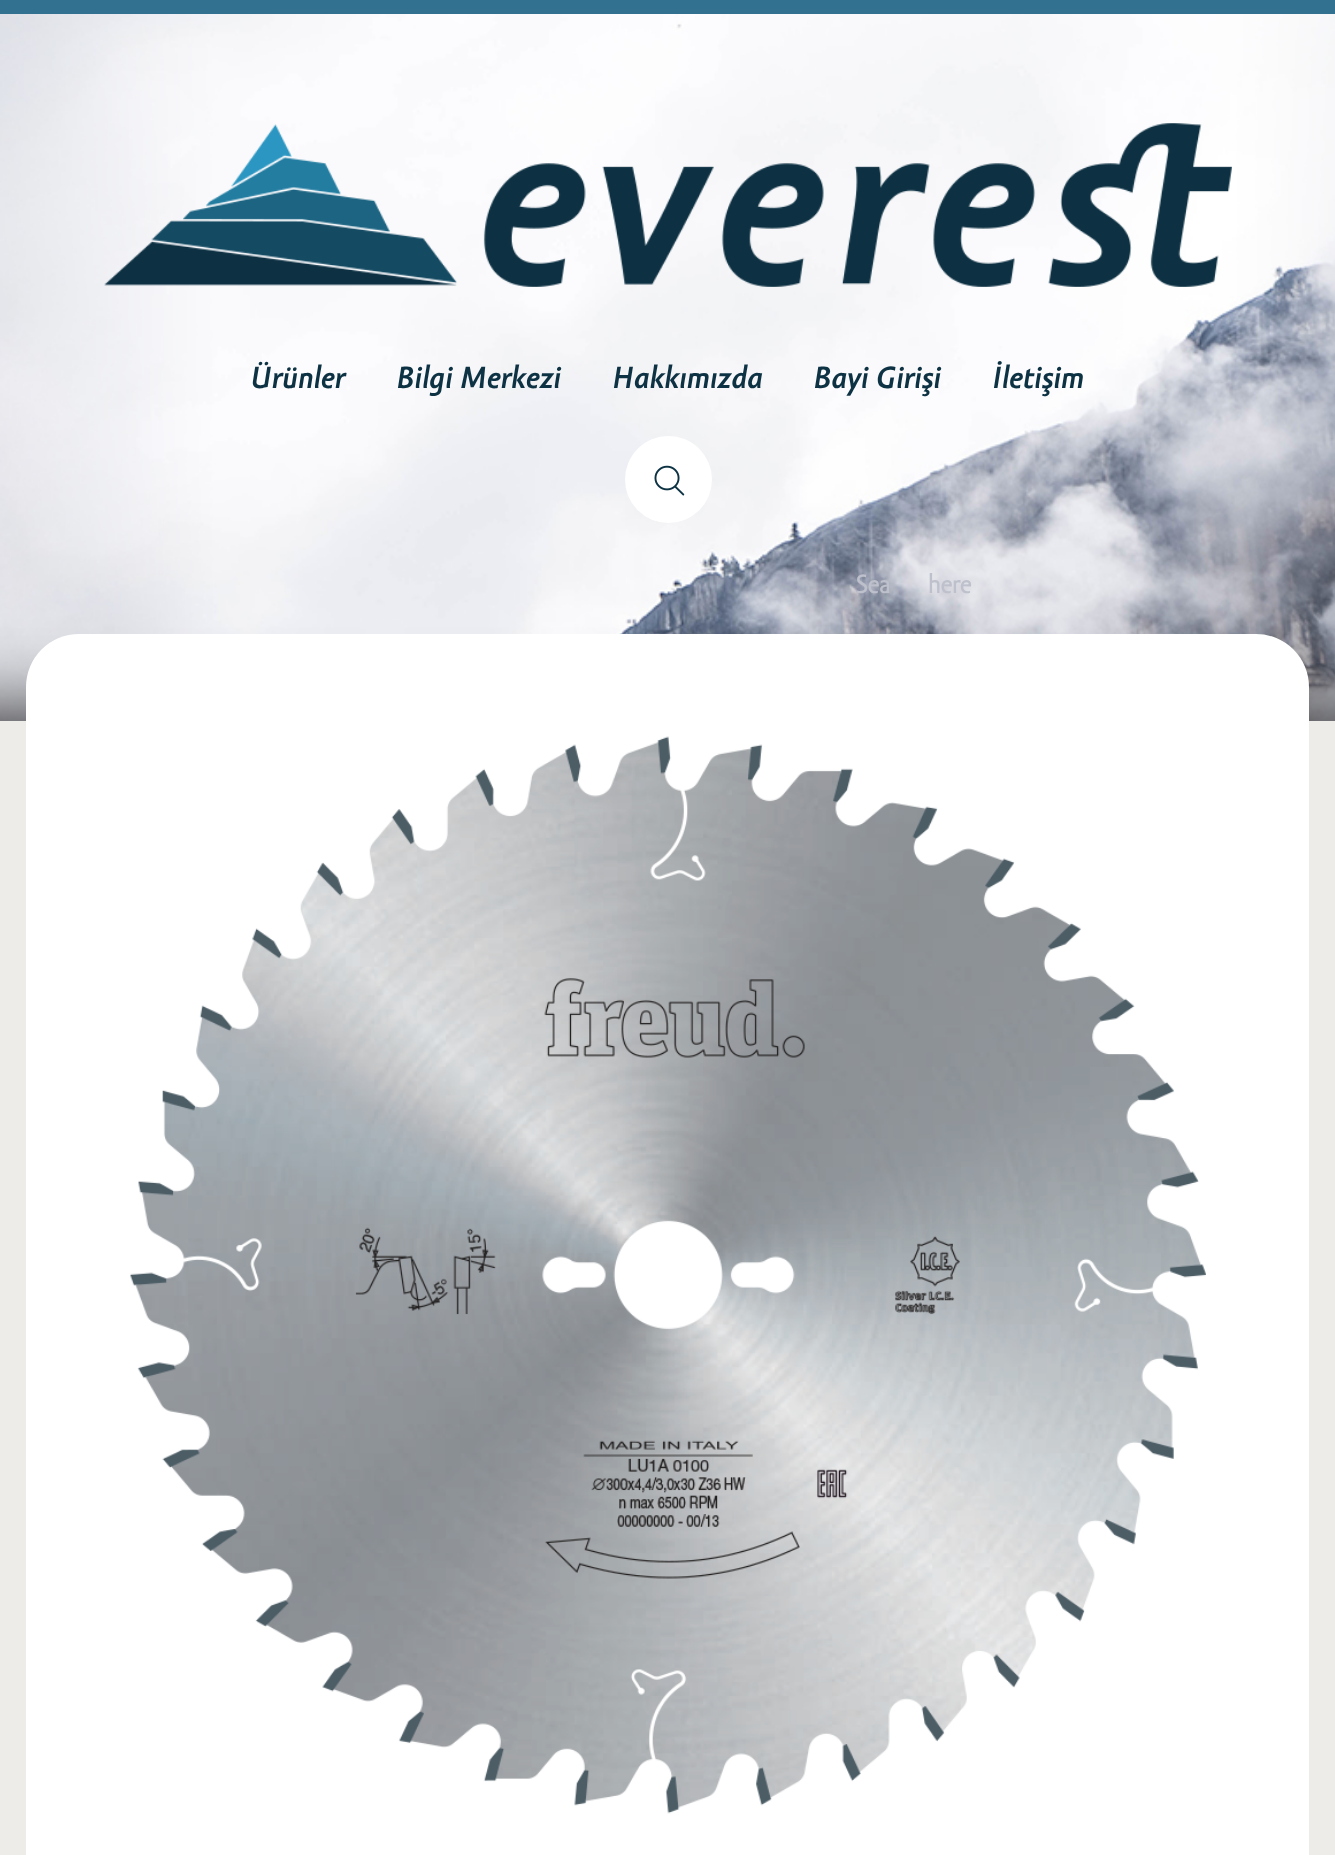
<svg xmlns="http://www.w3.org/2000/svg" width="1335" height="1855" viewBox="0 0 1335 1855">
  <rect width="100%" height="100%" fill="rgb(237,236,233)"/>
  <rect x="0" y="0" width="1335" height="14" fill="rgb(50,114,144)"/>
  <image x="0" y="14" width="1335" height="707" href="pic1.png"/>
  <image x="104" y="123" width="1128" height="164" href="pic2.png"/>
  <g font-family="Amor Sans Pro" font-size="31.5" font-weight="bold" font-style="italic" fill="rgb(13,50,67)">
    <text x="251" y="388">Ürünler</text>
    <text x="397" y="388">Bilgi Merkezi</text>
    <text x="613" y="388">Hakkımızda</text>
    <text x="814" y="388">Bayi Girişi</text>
    <text x="993" y="388">İletişim</text>
  </g>
  <circle cx="668.5" cy="479.5" r="43.5" fill="rgb(255,255,255)"/>
  <image x="654" y="465" width="31" height="31" href="pic3.png"/>
  <g font-family="Amor Sans Pro" font-size="26" font-weight="bold" fill="rgb(190,193,204)">
    <text x="856" y="593">Sea</text>
    <text x="928" y="593">here</text>
  </g>
  <rect x="26" y="634" width="1283" height="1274" rx="53" fill="rgb(255,255,255)"/>
  <image x="130" y="736" width="1076" height="1078" href="pic4.png"/>
</svg>
